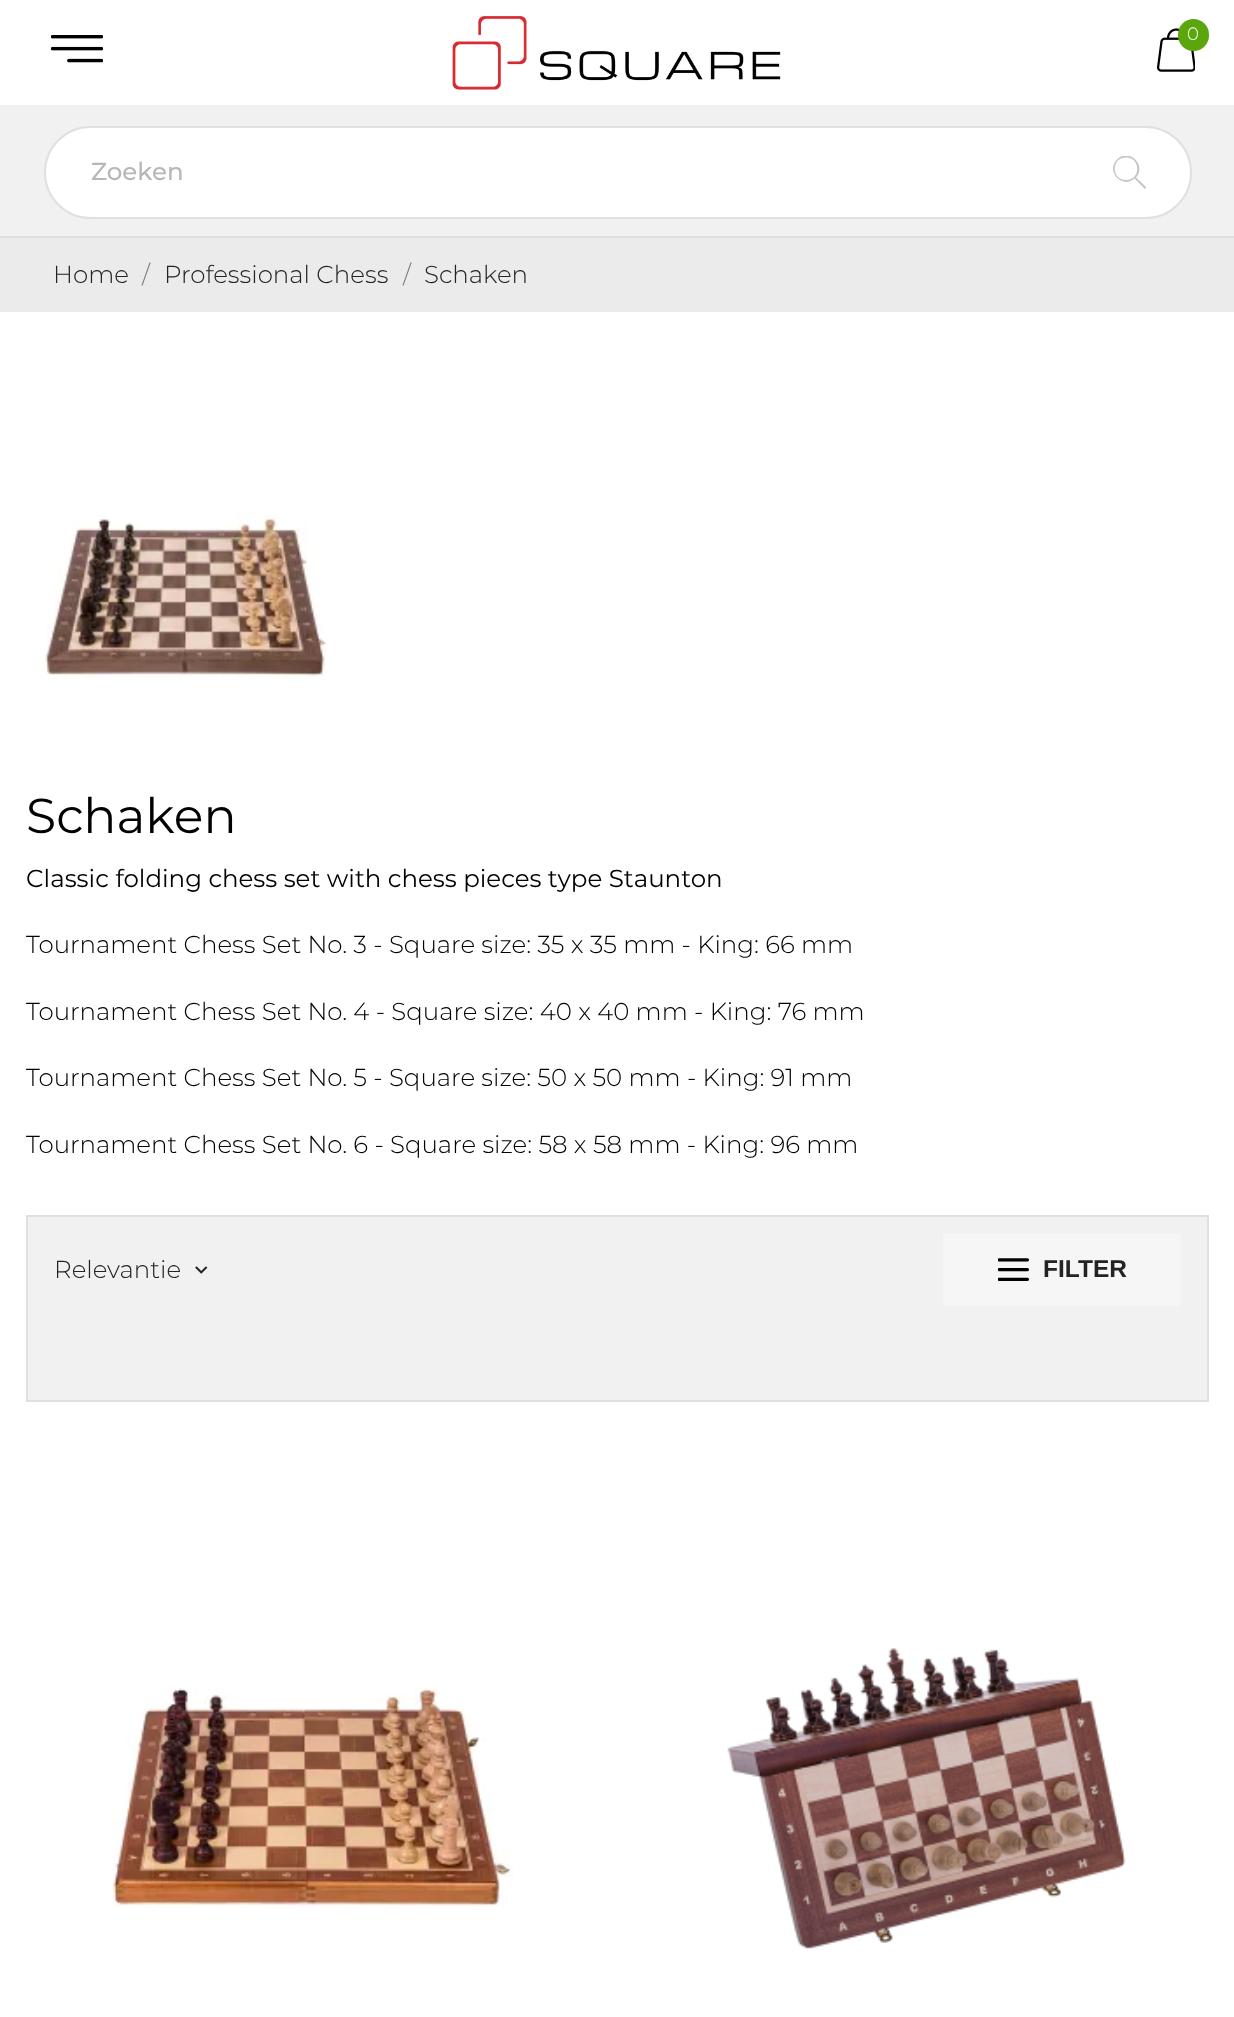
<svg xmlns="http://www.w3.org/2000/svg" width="1234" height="2017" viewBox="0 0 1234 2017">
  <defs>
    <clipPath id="clip1"><rect x="1113" y="156" width="33" height="33"/></clipPath>
  </defs>
  <rect width="100%" height="100%" fill="rgb(255,255,255)"/>
  <image x="51" y="35" width="52" height="28" href="pic1.png"/>
  <image x="452" y="16" width="329" height="74" href="pic2.png"/>
  <image x="1157" y="28" width="38" height="44" href="pic3.png"/>
  <rect x="1178" y="19" width="31" height="32" rx="15.5" fill="rgb(92,166,13)"/>
  <text x="1187" y="40" font-family="Montserrat" font-size="18" font-weight="100" fill="rgb(255,255,255)">0</text>
  <rect x="0" y="105" width="1234" height="131" fill="rgb(241,241,241)"/>
  <rect x="0" y="236" width="1234" height="2" fill="rgb(224,224,224)"/>
  <rect x="45" y="127" width="1146" height="91" rx="45.5" fill="rgb(255,255,255)" stroke="rgb(224,224,224)" stroke-width="2"/>
  <text x="91" y="180" font-family="'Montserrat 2'" font-size="24.5" font-weight="100" fill="rgb(183,183,183)">Zoeken</text>
  <g clip-path="url(#clip1)">
    <path d="M1146.5 187.5L1145 189L1134.5 178.5C1122.5 189.5 1105 171.5 1117 159.5C1129 147.5 1147 165 1136 177.5ZM1126 157.5C1111 157.5 1111 180 1126 180C1141 180 1141 157.5 1126 157.5Z" fill="rgb(197,198,204)" fill-rule="evenodd"/>
  </g>
  <rect x="0" y="238" width="1234" height="74" fill="rgb(235,235,235)"/>
  <text x="53" y="283" font-family="Montserrat" font-size="24.5" font-weight="100" fill="rgb(35,35,35)">Home</text>
  <text x="142" y="283" font-family="Montserrat" font-size="24.5" font-weight="100" fill="rgb(122,122,122)">/</text>
  <text x="164" y="283" font-family="Montserrat" font-size="24.5" font-weight="100" fill="rgb(35,35,35)">Professional Chess</text>
  <text x="403" y="283" font-family="Montserrat" font-size="24.5" font-weight="100" fill="rgb(122,122,122)">/</text>
  <text x="424" y="283" font-family="Montserrat" font-size="24.5" font-weight="100" fill="rgb(35,35,35)">Schaken</text>
  <image x="45" y="514" width="282" height="168" href="pic4.png"/>
  <text x="26" y="833" font-family="'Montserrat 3'" font-size="49" font-weight="100" fill="rgb(0,0,0)">Schaken</text>
  <text x="26" y="887" font-family="'Montserrat 3'" font-size="24.5" font-weight="100" fill="rgb(0,0,0)">Classic folding chess set with chess pieces type Staunton</text>
  <g font-family="Montserrat" font-size="24.5" font-weight="100" fill="rgb(0,0,0)">
    <text x="26" y="953">Tournament Chess Set No. 3 - Square size: 35 x 35 mm - King: 66 mm</text>
    <text x="26" y="1020">Tournament Chess Set No. 4 - Square size: 40 x 40 mm - King: 76 mm</text>
    <text x="26" y="1086">Tournament Chess Set No. 5 - Square size: 50 x 50 mm - King: 91 mm</text>
    <text x="26" y="1153">Tournament Chess Set No. 6 - Square size: 58 x 58 mm - King: 96 mm</text>
  </g>
  <rect x="27" y="1216" width="1181" height="185" fill="rgb(242,241,241)" stroke="rgb(224,224,224)" stroke-width="2"/>
  <text x="54" y="1278" font-family="Montserrat" font-size="24.5" font-weight="100" fill="rgb(35,35,35)">Relevantie</text>
  <image x="195" y="1266" width="13" height="8" href="pic5.png"/>
  <rect x="943" y="1234" width="238" height="72" fill="rgb(246,246,246)"/>
  <image x="998" y="1258" width="31" height="23" href="pic6.png"/>
  <text x="1043" y="1277" font-family="Liberation Sans" font-size="24.5" font-weight="bold" fill="rgb(35,35,35)">FILTER</text>
  <image x="112" y="1687" width="401" height="220" href="pic7.png"/>
  <image x="727" y="1648" width="399" height="301" href="pic8.png"/>
</svg>
